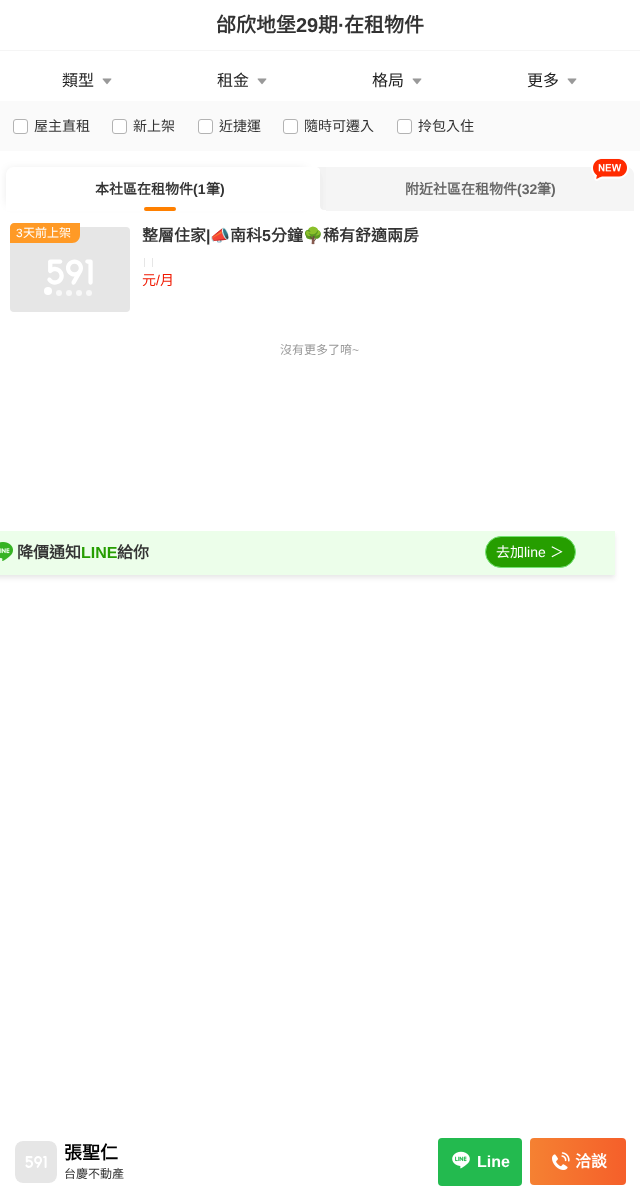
<svg xmlns="http://www.w3.org/2000/svg" width="640" height="1193" viewBox="0 0 640 1193">
  <defs>
    <linearGradient id="g1" gradientUnits="userSpaceOnUse" x1="530" y1="1162" x2="626" y2="1162"><stop offset="0" stop-color="rgb(245,129,50)"/><stop offset="1" stop-color="rgb(245,95,42)"/></linearGradient>
  </defs>
  <rect width="100%" height="100%" fill="rgb(255,255,255)"/>
  <rect x="0" y="50" width="640" height="1" fill="rgb(245,245,245)"/>
  <text x="216" y="32" font-family="Noto Sans CJK TC" font-size="20" font-weight="bold" fill="rgb(51,51,51)">邰欣地堡</text>
  <text x="296" y="32" font-family="Liberation Sans" font-size="20" font-weight="bold" fill="rgb(51,51,51)">29</text>
  <text x="318" y="32" font-family="Noto Sans CJK TC" font-size="20" font-weight="bold" fill="rgb(51,51,51)">期</text>
  <text x="338" y="32" font-family="Liberation Sans" font-size="20" font-weight="bold" fill="rgb(51,51,51)">·</text>
  <text x="344" y="32" font-family="Noto Sans CJK TC" font-size="20" font-weight="bold" fill="rgb(51,51,51)">在租物件</text>
  <text x="62" y="86" font-family="Noto Sans CJK TC" font-size="16" fill="rgb(34,34,34)">類型</text>
  <image x="102" y="78" width="10" height="7" href="pic1.png"/>
  <text x="217" y="86" font-family="Noto Sans CJK TC" font-size="16" fill="rgb(34,34,34)">租金</text>
  <image x="257" y="78" width="10" height="7" href="pic1.png"/>
  <text x="372" y="86" font-family="Noto Sans CJK TC" font-size="16" fill="rgb(34,34,34)">格局</text>
  <image x="412" y="78" width="10" height="7" href="pic1.png"/>
  <text x="527" y="86" font-family="Noto Sans CJK TC" font-size="16" fill="rgb(34,34,34)">更多</text>
  <image x="567" y="78" width="10" height="7" href="pic1.png"/>
  <rect x="0" y="101" width="640" height="50" fill="rgb(250,250,250)"/>
  <rect x="13.5" y="119.5" width="14" height="14" rx="2.5" fill="rgb(255,255,255)" stroke="rgb(179,179,179)"/>
  <text x="34" y="131" font-family="Noto Sans CJK TC" font-size="14" fill="rgb(51,51,51)">屋主直租</text>
  <rect x="112.5" y="119.5" width="14" height="14" rx="2.5" fill="rgb(255,255,255)" stroke="rgb(179,179,179)"/>
  <text x="133" y="131" font-family="Noto Sans CJK TC" font-size="14" fill="rgb(51,51,51)">新上架</text>
  <rect x="198.5" y="119.5" width="14" height="14" rx="2.5" fill="rgb(255,255,255)" stroke="rgb(179,179,179)"/>
  <text x="219" y="131" font-family="Noto Sans CJK TC" font-size="14" fill="rgb(51,51,51)">近捷運</text>
  <rect x="283.5" y="119.5" width="14" height="14" rx="2.5" fill="rgb(255,255,255)" stroke="rgb(179,179,179)"/>
  <text x="304" y="131" font-family="Noto Sans CJK TC" font-size="14" fill="rgb(51,51,51)">隨時可遷入</text>
  <rect x="397.5" y="119.5" width="14" height="14" rx="2.5" fill="rgb(255,255,255)" stroke="rgb(179,179,179)"/>
  <text x="418" y="131" font-family="Noto Sans CJK TC" font-size="14" fill="rgb(51,51,51)">拎包入住</text>
  <rect x="8" y="170" width="298" height="34" rx="3" fill="rgba(0,0,0,0.12)" filter="blur(5px)"/>
  <path d="M14 167H314V211H6V175C6 170.5 9.5 167 14 167Z" fill="rgb(255,255,255)"/>
  <text x="95" y="194" font-family="Noto Sans CJK TC" font-size="14" font-weight="bold" fill="rgb(51,51,51)">本社區在租物件</text>
  <text x="193" y="194" font-family="Liberation Sans" font-size="14" font-weight="bold" fill="rgb(51,51,51)">(1</text>
  <text x="206" y="194" font-family="Noto Sans CJK TC" font-size="14" font-weight="bold" fill="rgb(51,51,51)">筆</text>
  <text x="220" y="194" font-family="Liberation Sans" font-size="14" font-weight="bold" fill="rgb(51,51,51)">)</text>
  <rect x="316" y="167" width="10" height="44" fill="rgb(245,245,245)"/>
  <image x="314" y="167" width="12" height="44" href="pic2.png"/>
  <path d="M326 167H626C630.5 167 634 170.5 634 175V211H326Z" fill="rgb(245,245,245)"/>
  <image x="591" y="158" width="38" height="23" href="pic3.png"/>
  <text x="405" y="194" font-family="Noto Sans CJK TC" font-size="14" font-weight="bold" fill="rgb(102,102,102)">附近社區在租物件</text>
  <text x="517" y="194" font-family="Liberation Sans" font-size="14" font-weight="bold" fill="rgb(102,102,102)">(32</text>
  <text x="537" y="194" font-family="Noto Sans CJK TC" font-size="14" font-weight="bold" fill="rgb(102,102,102)">筆</text>
  <text x="551" y="194" font-family="Liberation Sans" font-size="14" font-weight="bold" fill="rgb(102,102,102)">)</text>
  <rect x="144" y="207" width="32" height="4" rx="2" fill="rgb(255,128,0)"/>
  <image x="10" y="227" width="120" height="85" href="pic4.png"/>
  <path d="M14 223H80V235C80 239.5 76.5 243 72 243H10V227C10 225 12 223 14 223Z" fill="rgb(255,154,38)"/>
  <text x="16" y="237" font-family="Liberation Sans" font-size="12" fill="rgb(255,255,255)">3</text>
  <text x="23" y="237" font-family="Noto Sans CJK TC" font-size="12" fill="rgb(255,255,255)">天前上架</text>
  <circle cx="48" cy="291" r="4" fill="rgb(255,255,255)"/>
  <circle cx="59" cy="293" r="3" fill="rgb(248,248,248)"/>
  <circle cx="69" cy="293" r="3" fill="rgb(248,248,248)"/>
  <circle cx="79" cy="293" r="3" fill="rgb(248,248,248)"/>
  <circle cx="89" cy="293" r="3" fill="rgb(248,248,248)"/>
  <text x="142" y="241" font-family="Noto Sans CJK TC" font-size="16" font-weight="bold" fill="rgb(51,51,51)">整層住家</text>
  <text x="206" y="241" font-family="Liberation Sans" font-size="16" font-weight="bold" fill="rgb(51,51,51)">|</text>
  <text x="210" y="241" font-family="Noto Color Emoji" font-size="16" font-weight="bold" fill="rgb(51,51,51)">📣</text>
  <text x="230" y="241" font-family="Noto Sans CJK TC" font-size="16" font-weight="bold" fill="rgb(51,51,51)">南科</text>
  <text x="262" y="241" font-family="Liberation Sans" font-size="16" font-weight="bold" fill="rgb(51,51,51)">5</text>
  <text x="271" y="241" font-family="Noto Sans CJK TC" font-size="16" font-weight="bold" fill="rgb(51,51,51)">分鐘</text>
  <text x="303" y="241" font-family="Noto Color Emoji" font-size="16" font-weight="bold" fill="rgb(51,51,51)">🌳</text>
  <text x="323" y="241" font-family="Noto Sans CJK TC" font-size="16" font-weight="bold" fill="rgb(51,51,51)">稀有舒適兩房</text>
  <rect x="144" y="258" width="1" height="9" fill="rgb(230,230,230)"/>
  <rect x="152" y="258" width="1" height="9" fill="rgb(230,230,230)"/>
  <text x="142" y="285" font-family="Noto Sans CJK TC" font-size="14" fill="rgb(240,24,0)">元</text>
  <text x="156" y="285" font-family="Liberation Sans" font-size="14" fill="rgb(240,24,0)">/</text>
  <text x="160" y="285" font-family="Noto Sans CJK TC" font-size="14" fill="rgb(240,24,0)">月</text>
  <text x="280" y="354" font-family="Noto Sans CJK TC" font-size="12" fill="rgb(153,153,153)">沒有更多了唷</text>
  <text x="352" y="354" font-family="Liberation Sans" font-size="12" fill="rgb(153,153,153)">~</text>
  <rect x="-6" y="534" width="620" height="42" fill="rgba(0,0,0,0.04)" filter="blur(2px)"/>
  <rect x="-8" y="535" width="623" height="44" fill="rgba(0,0,0,0.06)" filter="blur(2.5px)"/>
  <rect x="0" y="531" width="615" height="44" fill="rgb(236,254,234)"/>
  <image x="0" y="542" width="13" height="19" href="pic5.png"/>
  <text x="17" y="558" font-family="Noto Sans CJK TC" font-size="16" font-weight="bold" fill="rgb(51,51,51)">降價通知</text>
  <text x="81" y="558" font-family="Liberation Sans" font-size="16" font-weight="bold" fill="rgb(38,158,0)">LINE</text>
  <text x="117" y="558" font-family="Noto Sans CJK TC" font-size="16" font-weight="bold" fill="rgb(51,51,51)">給你</text>
  <rect x="485.5" y="536.5" width="90" height="31" rx="15.5" fill="rgb(38,158,0)" stroke="rgb(117,227,116)"/>
  <text x="496" y="557" font-family="Noto Sans CJK TC" font-size="14" fill="rgb(255,255,255)">去加</text>
  <text x="524" y="557" font-family="Liberation Sans" font-size="14" fill="rgb(255,255,255)">line</text>
  <text x="550" y="557" font-family="Noto Sans CJK TC" font-size="14" fill="rgb(255,255,255)">＞</text>
  <rect x="15" y="1141" width="42" height="42" rx="8" fill="rgb(245,245,245)"/>
  <image x="15" y="1141" width="42" height="42" href="pic6.png"/>
  <text x="64" y="1159" font-family="Noto Sans CJK TC" font-size="18" font-weight="bold" fill="rgb(0,0,0)">張聖仁</text>
  <text x="64" y="1178" font-family="Noto Sans CJK TC" font-size="12" fill="rgb(51,51,51)">台慶不動產</text>
  <rect x="438" y="1138" width="84" height="48" rx="4" fill="rgb(35,186,79)"/>
  <image x="452" y="1151" width="18" height="18" href="pic7.png"/>
  <text x="477" y="1167" font-family="Liberation Sans" font-size="16" font-weight="bold" fill="rgb(255,255,255)">Line</text>
  <rect x="530" y="1138" width="96" height="47" rx="4" fill="url(#g1)"/>
  <image x="552" y="1152" width="18" height="18" href="pic8.png"/>
  <text x="575" y="1167" font-family="Noto Sans CJK TC" font-size="16" font-weight="bold" fill="rgb(255,255,255)">洽談</text>
</svg>
